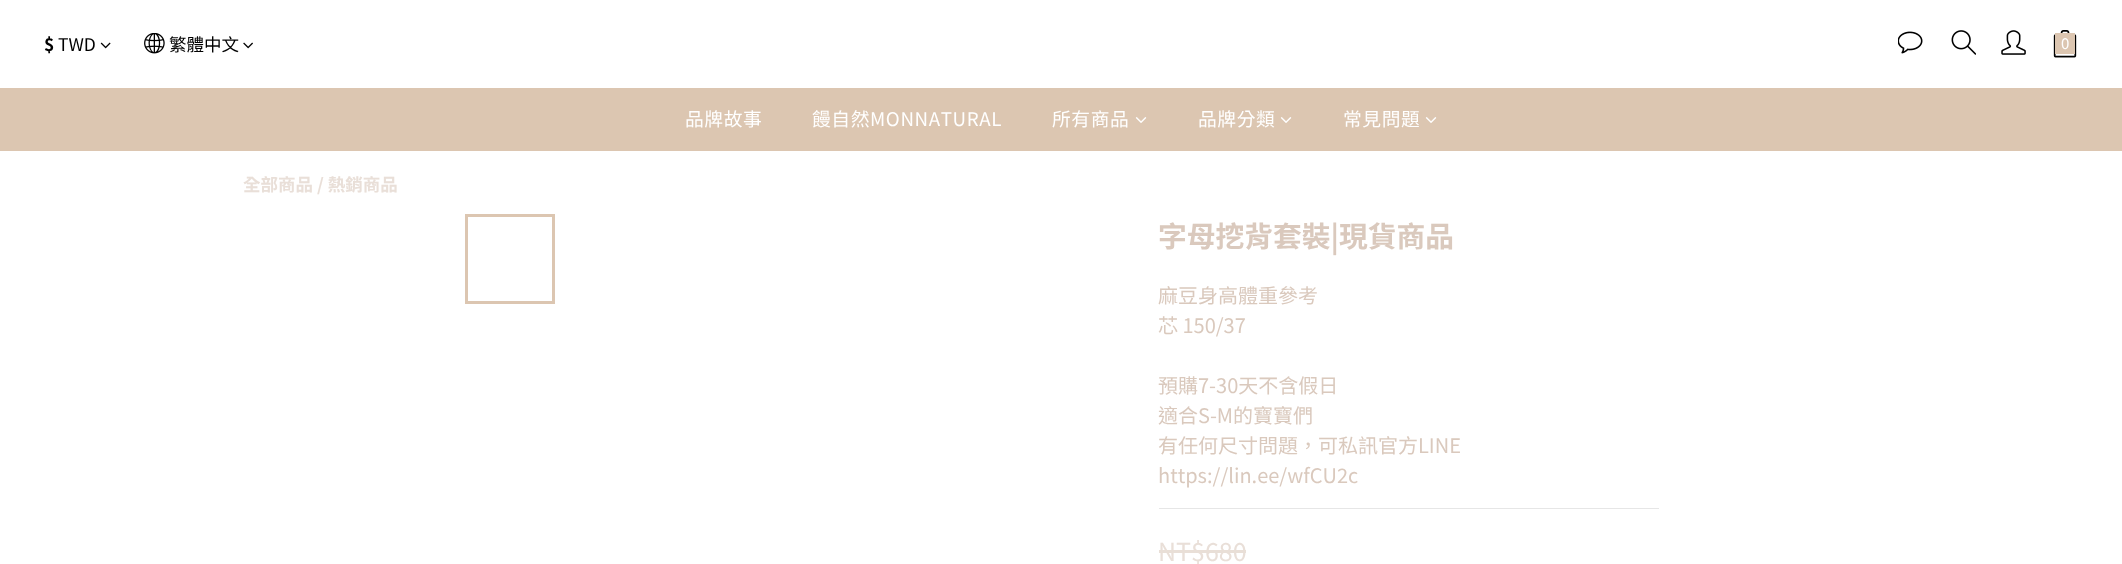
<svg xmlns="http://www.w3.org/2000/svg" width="2122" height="564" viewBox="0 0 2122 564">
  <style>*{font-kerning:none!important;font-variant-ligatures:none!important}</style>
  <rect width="100%" height="100%" fill="rgb(255,255,255)"/>
  <text x="44" y="51" font-family="Noto Sans TC" font-size="17.5" font-weight="bold" fill="rgb(0,0,0)">$</text>
  <text x="58" y="51" font-family="Noto Sans TC" font-size="17.5" fill="rgb(0,0,0)">TWD</text>
  <image x="100" y="42" width="11" height="7" href="pic1.png"/>
  <image x="144" y="33" width="21" height="21" href="pic2.png"/>
  <text x="169" y="51" font-family="Noto Sans TC" font-size="17.5" fill="rgb(0,0,0)">繁體中文</text>
  <image x="243" y="42" width="10" height="7" href="pic3.png"/>
  <image x="1898" y="31" width="25" height="23" href="pic4.png"/>
  <image x="1951" y="30" width="25" height="25" href="pic5.png"/>
  <image x="2001" y="30" width="25" height="25" href="pic6.png"/>
  <image x="2053" y="30" width="24" height="28" href="pic7.png"/>
  <rect x="2055" y="33" width="20" height="21" fill="rgb(220,198,177)"/>
  <text x="2061" y="49" font-family="Noto Sans TC" font-size="15" fill="rgb(255,255,255)">0</text>
  <rect x="0" y="88" width="2122" height="63" fill="rgb(220,198,177)"/>
  <g font-family="Noto Sans TC" font-size="18.75" letter-spacing="0.6" fill="rgb(255,255,255)">
    <text x="685" y="126">品牌故事</text>
    <text x="812" y="126">饅自然MONNATURAL</text>
    <text x="1052" y="126">所有商品</text>
  </g>
  <image x="1135" y="117" width="12" height="6" href="pic8.png"/>
  <text x="1198" y="126" font-family="Noto Sans TC" font-size="18.75" letter-spacing="0.6" fill="rgb(255,255,255)">品牌分類</text>
  <image x="1280" y="117" width="12" height="6" href="pic8.png"/>
  <text x="1343" y="126" font-family="Noto Sans TC" font-size="18.75" letter-spacing="0.6" fill="rgb(255,255,255)">常見問題</text>
  <image x="1425" y="117" width="12" height="6" href="pic8.png"/>
  <text x="243" y="191" font-family="Noto Sans TC" font-size="17.5" font-weight="bold" fill="rgb(233,223,216)">全部商品 / 熱銷商品</text>
  <rect x="466.5" y="215.5" width="87" height="87" fill="none" stroke="rgb(220,198,177)" stroke-width="3"/>
  <text x="1158" y="247" font-family="Noto Sans TC" font-size="28.75" font-weight="bold" fill="rgb(218,201,189)">字母挖背套裝|現貨商品</text>
  <g font-family="Noto Sans TC" font-size="20" fill="rgb(218,201,189)">
    <text>
      <tspan x="1158" y="303">麻豆身高體重參考</tspan>
      <tspan x="1158" y="333">芯 150/37</tspan>
    </text>
    <text>
      <tspan x="1158" y="393">預購7-30天不含假日</tspan>
      <tspan x="1158" y="423">適合S-M的寶寶們</tspan>
      <tspan x="1158" y="453">有任何尺寸問題，可私訊官方LINE</tspan>
      <tspan x="1158" y="483">https://lin.ee/wfCU2c</tspan>
    </text>
  </g>
  <rect x="1159" y="508" width="500" height="1" fill="rgb(230,230,230)"/>
  <text x="1158" y="561" font-family="Noto Sans TC" font-size="25" fill="rgb(233,223,216)">NT$680</text>
  <rect x="1159" y="550" width="87" height="3" fill="rgb(233,223,215)"/>
</svg>
